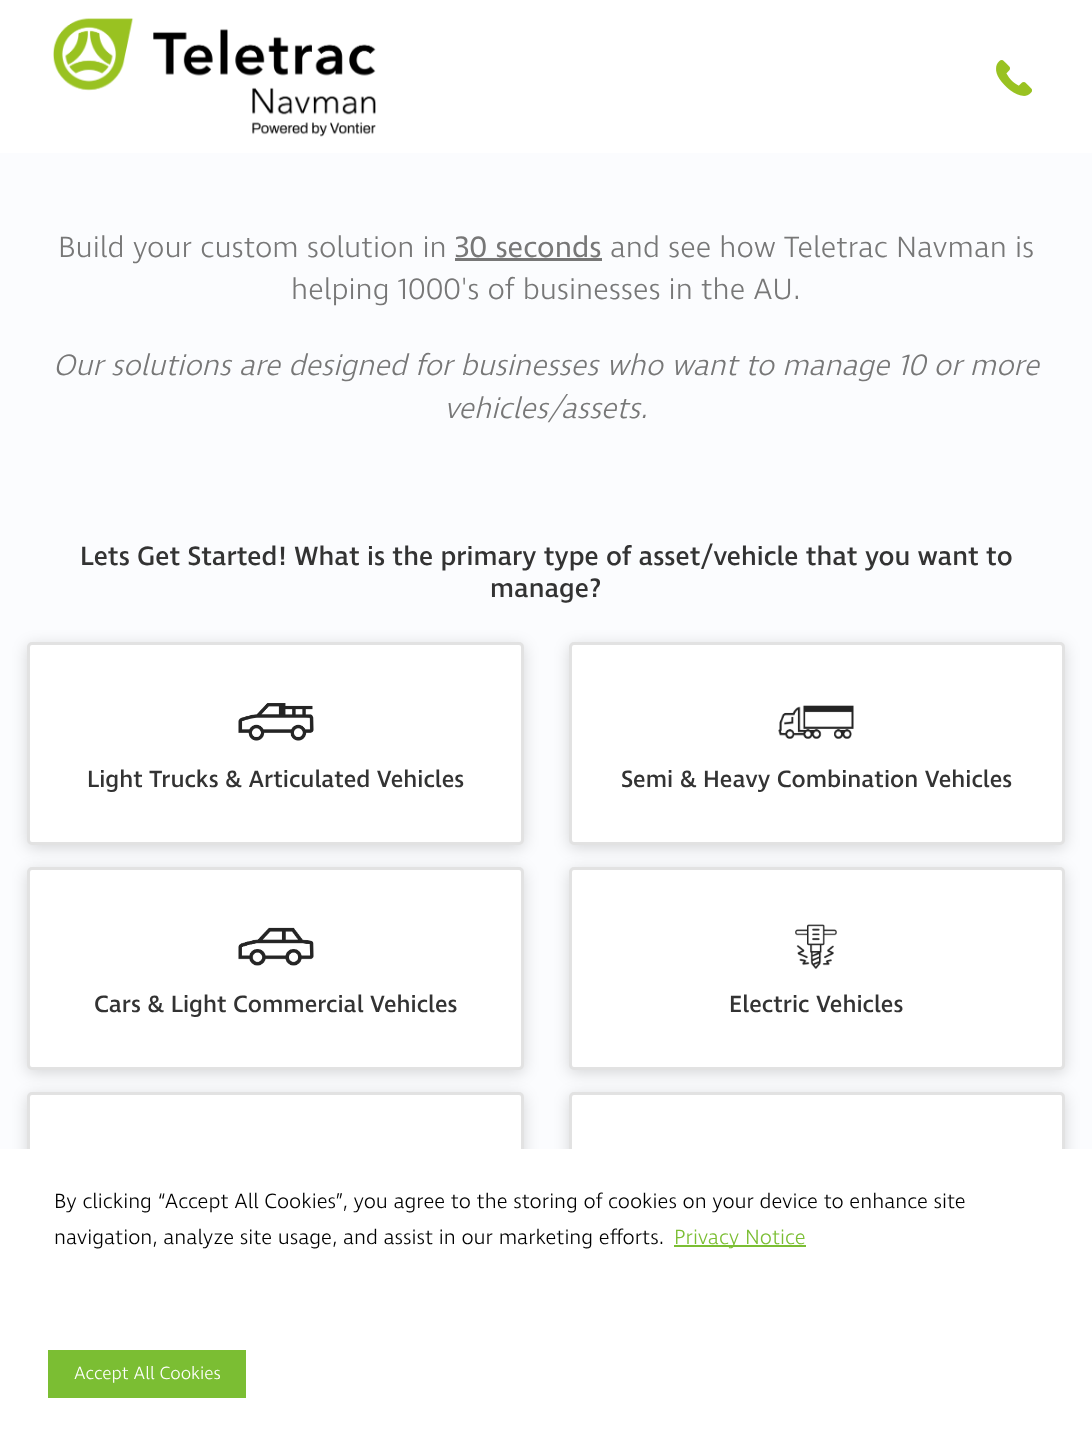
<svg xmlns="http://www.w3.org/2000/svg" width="1092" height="1445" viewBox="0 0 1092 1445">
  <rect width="100%" height="100%" fill="rgb(251,252,254)"/>
  <rect x="0" y="0" width="1092" height="153" fill="rgb(255,255,255)"/>
  <image x="53" y="18" width="323" height="119" href="pic1.png"/>
  <image x="996" y="60" width="36" height="36" href="pic2.png"/>
  <text x="58" y="257" font-family="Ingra" font-size="30" font-weight="300" fill="rgb(119,119,119)">Build your custom solution in</text>
  <text x="455" y="257" font-family="Ingra" font-size="30" fill="rgb(119,119,119)">30 seconds</text>
  <rect x="455" y="258" width="147" height="3" fill="rgb(119,119,119)"/>
  <g font-family="Ingra" font-size="30" font-weight="300" fill="rgb(119,119,119)">
    <text x="610" y="257">and see how Teletrac Navman is</text>
    <text x="291" y="299">helping 1000's of businesses in the AU.</text>
  </g>
  <g font-family="Ingra" font-size="30" font-weight="300" font-style="italic" fill="rgb(119,119,119)">
    <text x="53" y="375">Our solutions are designed for businesses who want to manage 10 or more</text>
    <text x="444" y="418">vehicles/assets.</text>
  </g>
  <g font-family="Ingra" font-size="27" font-weight="500" fill="rgb(51,51,51)">
    <text x="80" y="565">Lets Get Started! What is the primary type of asset/vehicle that you want to</text>
    <text x="490" y="597">manage?</text>
  </g>
  <rect x="27" y="645" width="497" height="203" rx="5" fill="rgba(0,0,0,0.15)" filter="blur(7.5px)"/>
  <rect x="28.5" y="643.5" width="494" height="200" rx="3.5" fill="rgb(255,255,255)" stroke="rgb(226,226,226)" stroke-width="3"/>
  <image x="238" y="703" width="76" height="38" href="pic3.png"/>
  <text x="87" y="787" font-family="Ingra" font-size="24" font-weight="500" fill="rgb(51,51,51)">Light Trucks &amp; Articulated Vehicles</text>
  <rect x="569" y="645" width="496" height="203" rx="5" fill="rgba(0,0,0,0.15)" filter="blur(7.5px)"/>
  <rect x="570.5" y="643.5" width="493" height="200" rx="3.5" fill="rgb(255,255,255)" stroke="rgb(226,226,226)" stroke-width="3"/>
  <image x="778" y="705" width="76" height="34" href="pic4.png"/>
  <text x="621" y="787" font-family="Ingra" font-size="24" font-weight="500" fill="rgb(51,51,51)">Semi &amp; Heavy Combination Vehicles</text>
  <rect x="27" y="870" width="497" height="203" rx="5" fill="rgba(0,0,0,0.15)" filter="blur(7.5px)"/>
  <rect x="28.5" y="868.5" width="494" height="200" rx="3.5" fill="rgb(255,255,255)" stroke="rgb(226,226,226)" stroke-width="3"/>
  <image x="238" y="927" width="76" height="39" href="pic5.png"/>
  <text x="94" y="1012" font-family="Ingra" font-size="24" font-weight="500" fill="rgb(51,51,51)">Cars &amp; Light Commercial Vehicles</text>
  <rect x="569" y="870" width="496" height="203" rx="5" fill="rgba(0,0,0,0.15)" filter="blur(7.5px)"/>
  <rect x="570.5" y="868.5" width="493" height="200" rx="3.5" fill="rgb(255,255,255)" stroke="rgb(226,226,226)" stroke-width="3"/>
  <image x="795" y="924" width="42" height="45" href="pic6.png"/>
  <text x="729" y="1012" font-family="Ingra" font-size="24" font-weight="500" fill="rgb(51,51,51)">Electric Vehicles</text>
  <rect x="27" y="1095" width="497" height="203" rx="5" fill="rgba(0,0,0,0.15)" filter="blur(7.5px)"/>
  <rect x="28.5" y="1093.5" width="494" height="200" rx="3.5" fill="rgb(255,255,255)" stroke="rgb(226,226,226)" stroke-width="3"/>
  <rect x="569" y="1095" width="496" height="203" rx="5" fill="rgba(0,0,0,0.15)" filter="blur(7.5px)"/>
  <rect x="570.5" y="1093.5" width="493" height="200" rx="3.5" fill="rgb(255,255,255)" stroke="rgb(226,226,226)" stroke-width="3"/>
  <rect x="0" y="1149" width="1092" height="296" fill="rgb(255,255,255)"/>
  <g font-family="Ingra" font-size="21" font-weight="300" fill="rgb(0,0,0)">
    <text>
      <tspan x="54" y="1208">By clicking “Accept All Cookies”, you agree to the storing of cookies on your device to enhance site</tspan>
      <tspan x="54" y="1244">navigation, analyze site usage, and assist in our marketing efforts.</tspan>
    </text>
  </g>
  <rect x="674" y="1245" width="132" height="2" fill="rgb(123,190,51)"/>
  <text x="674" y="1244" font-family="Ingra" font-size="21" font-weight="300" fill="rgb(123,190,51)">Privacy Notice</text>
  <rect x="48" y="1350" width="198" height="48" fill="rgb(123,190,51)"/>
  <text x="74" y="1379" font-family="Ingra" font-size="18" font-weight="300" fill="rgb(255,255,255)">Accept All Cookies</text>
</svg>
